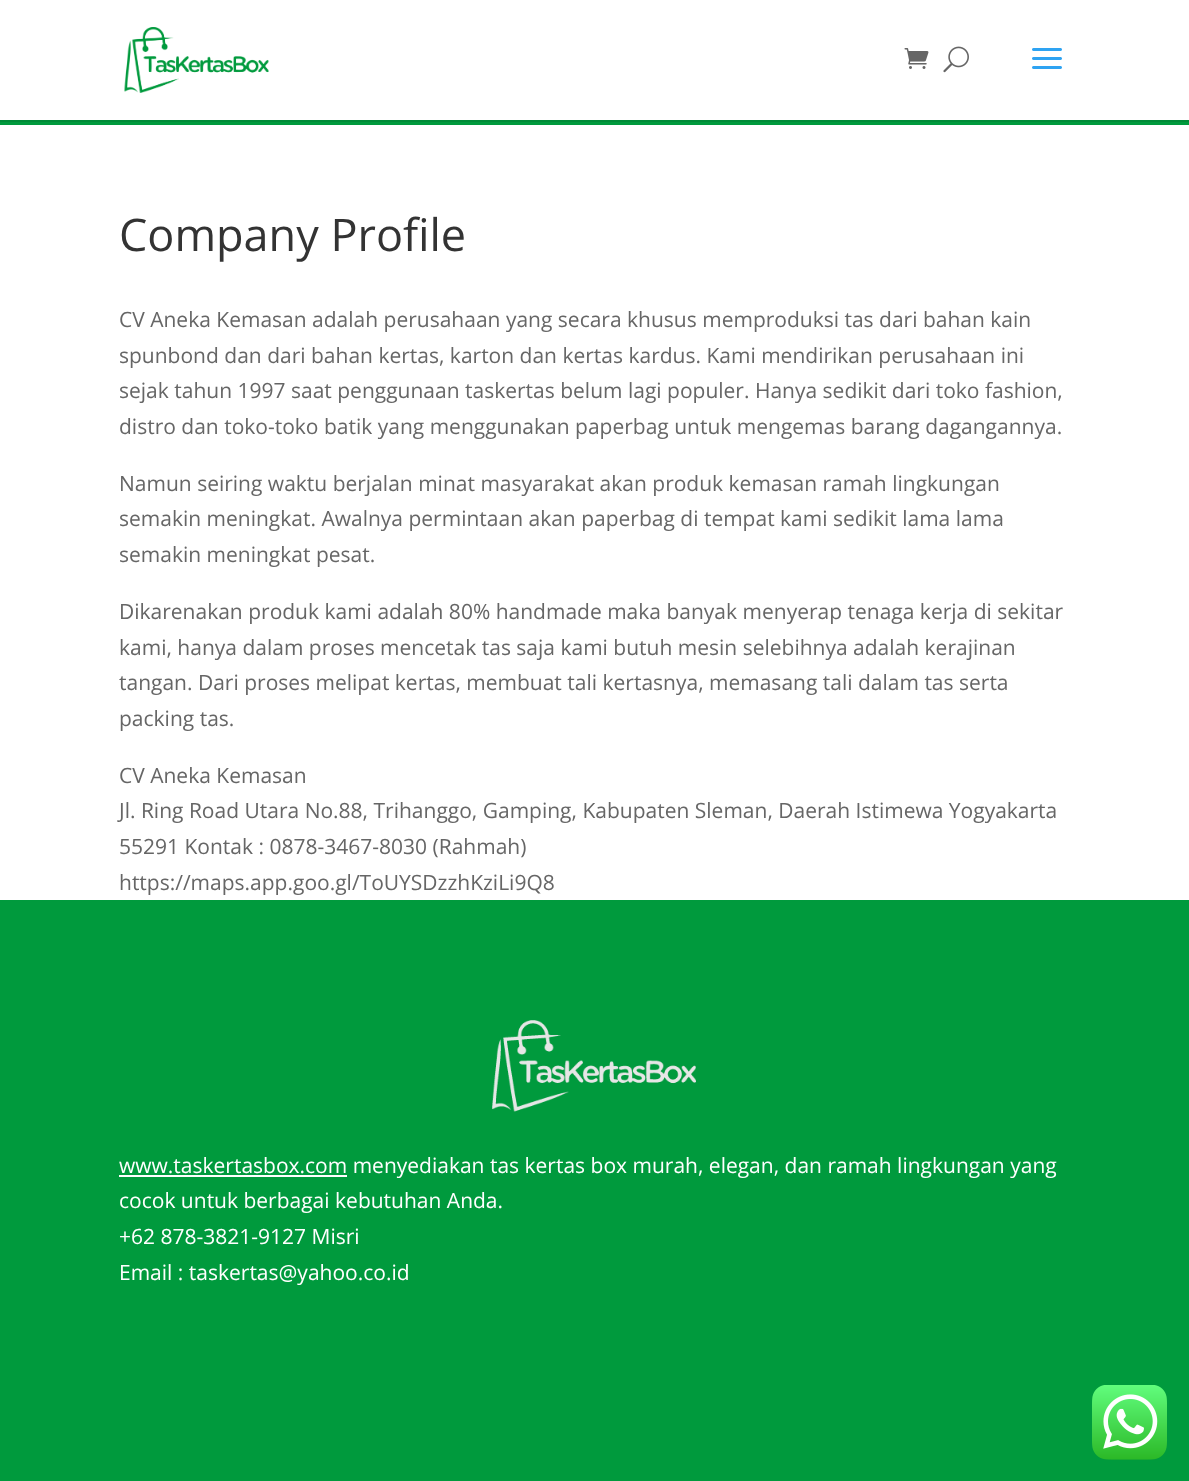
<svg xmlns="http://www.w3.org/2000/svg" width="1189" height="1481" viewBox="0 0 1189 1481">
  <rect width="100%" height="100%" fill="rgb(0,154,61)"/>
  <path d="M0 120V122H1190V2V120Z" fill="rgb(0,139,55)"/>
  <rect x="0" y="0" width="1189" height="120" fill="rgb(255,255,255)"/>
  <image x="124" y="27" width="145" height="66" href="pic1.png"/>
  <image x="904" y="48" width="25" height="21" href="pic2.png"/>
  <image x="943" y="46" width="26" height="27" href="pic3.png"/>
  <image x="1032" y="48" width="30" height="21" href="pic4.png"/>
  <rect x="0" y="125" width="1189" height="775" fill="rgb(255,255,255)"/>
  <text x="119" y="251" font-family="Open Sans" font-size="45" fill="rgb(51,51,51)">Company Profile</text>
  <g font-family="Open Sans" font-size="21" fill="rgb(102,102,102)">
    <text>
      <tspan x="119" y="327">CV Aneka Kemasan adalah perusahaan yang secara khusus memproduksi tas dari bahan kain</tspan>
      <tspan x="119" y="363">spunbond dan dari bahan kertas, karton dan kertas kardus. Kami mendirikan perusahaan ini</tspan>
      <tspan x="119" y="398">sejak tahun 1997 saat penggunaan taskertas belum lagi populer. Hanya sedikit dari toko fashion,</tspan>
      <tspan x="119" y="434">distro dan toko-toko batik yang menggunakan paperbag untuk mengemas barang dagangannya.</tspan>
    </text>
    <text>
      <tspan x="119" y="491">Namun seiring waktu berjalan minat masyarakat akan produk kemasan ramah lingkungan</tspan>
      <tspan x="119" y="526">semakin meningkat. Awalnya permintaan akan paperbag di tempat kami sedikit lama lama</tspan>
      <tspan x="119" y="562">semakin meningkat pesat.</tspan>
    </text>
    <text>
      <tspan x="119" y="619">Dikarenakan produk kami adalah 80% handmade maka banyak menyerap tenaga kerja di sekitar</tspan>
      <tspan x="119" y="655">kami, hanya dalam proses mencetak tas saja kami butuh mesin selebihnya adalah kerajinan</tspan>
      <tspan x="119" y="690">tangan. Dari proses melipat kertas, membuat tali kertasnya, memasang tali dalam tas serta</tspan>
      <tspan x="119" y="726">packing tas.</tspan>
    </text>
    <text>
      <tspan x="119" y="783">CV Aneka Kemasan</tspan>
      <tspan x="119" y="818">Jl. Ring Road Utara No.88, Trihanggo, Gamping, Kabupaten Sleman, Daerah Istimewa Yogyakarta</tspan>
      <tspan x="119" y="854">55291 Kontak : 0878-3467-8030 (Rahmah)</tspan>
      <tspan x="119" y="890">https://maps.app.goo.gl/ToUYSDzzhKziLi9Q8</tspan>
    </text>
  </g>
  <image x="492" y="1020" width="204" height="92" href="pic5.png"/>
  <rect x="119" y="1175" width="228" height="2" fill="rgb(255,255,255)"/>
  <g font-family="Open Sans" font-size="21" fill="rgb(255,255,255)">
    <text>
      <tspan x="119" y="1173">www.taskertasbox.com menyediakan tas kertas box murah, elegan, dan ramah lingkungan yang</tspan>
      <tspan x="119" y="1208">cocok untuk berbagai kebutuhan Anda.</tspan>
      <tspan x="119" y="1244">+62 878-3821-9127 Misri</tspan>
      <tspan x="119" y="1280">Email : taskertas@yahoo.co.id</tspan>
    </text>
  </g>
  <image x="1092" y="1385" width="75" height="75" href="pic6.png"/>
</svg>
